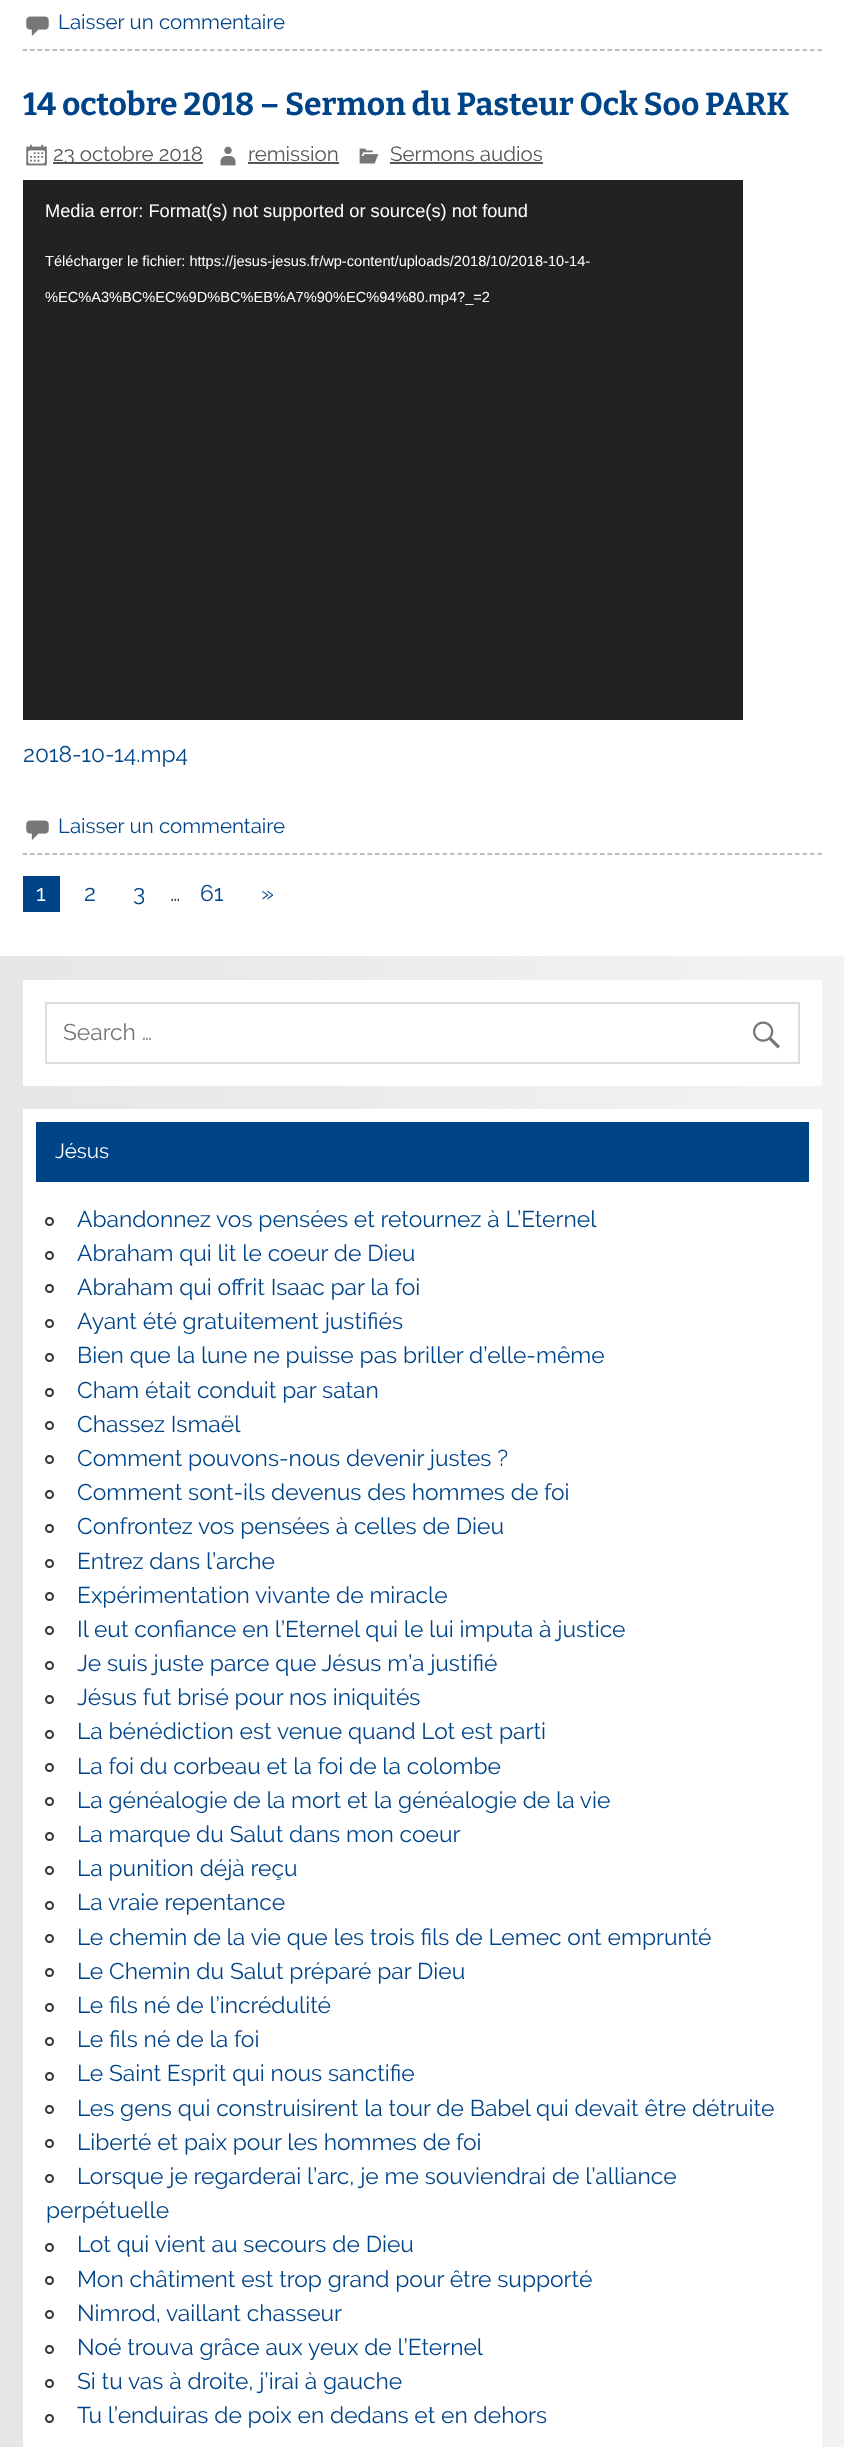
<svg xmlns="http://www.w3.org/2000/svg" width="844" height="2447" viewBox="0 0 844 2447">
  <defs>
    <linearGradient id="g1" gradientUnits="userSpaceOnUse" x1="0" y1="2033" x2="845" y2="2033"><stop offset="0" stop-color="rgb(230,230,230)"/><stop offset="1" stop-color="rgb(243,243,243)"/></linearGradient>
  </defs>
  <rect width="100%" height="100%" fill="rgb(255,255,255)"/>
  <path d="M22.5 50H822" fill="none" stroke="rgb(170,170,170)" stroke-width="1.5" stroke-dasharray="4.5 3"/>
  <image x="26" y="16" width="23" height="20" href="pic1.png"/>
  <text x="58" y="29" font-family="Raleway" font-size="20.5" fill="rgb(0,68,136)">Laisser un commentaire</text>
  <path d="M22.5 854H822" fill="none" stroke="rgb(170,170,170)" stroke-width="1.5" stroke-dasharray="4.5 3"/>
  <text x="23" y="115" font-family="Bitter" font-size="31.9" font-weight="bold" fill="rgb(0,68,136)">14 octobre 2018 – Sermon du Pasteur Ock Soo PARK</text>
  <image x="26" y="144" width="21" height="22" href="pic2.png"/>
  <rect x="53" y="162" width="150" height="2" fill="rgb(85,85,85)"/>
  <text x="53" y="161" font-family="Raleway" font-size="20.5" fill="rgb(85,85,85)">23 octobre 2018</text>
  <image x="220" y="146" width="16" height="20" href="pic3.png"/>
  <text x="248" y="161" font-family="Raleway" font-size="20.5" fill="rgb(85,85,85)">remission</text>
  <rect x="248" y="162" width="91" height="2" fill="rgb(85,85,85)"/>
  <image x="359" y="148" width="20" height="16" href="pic4.png"/>
  <text x="390" y="161" font-family="Raleway" font-size="20.5" fill="rgb(85,85,85)">Sermons audios</text>
  <rect x="390" y="162" width="153" height="2" fill="rgb(85,85,85)"/>
  <rect x="23" y="180" width="720" height="540" fill="rgb(34,34,34)"/>
  <text x="45" y="217" font-family="Liberation Sans" font-size="18.25" fill="rgb(255,255,255)">Media error: Format(s) not supported or source(s) not found</text>
  <g font-family="Liberation Sans" font-size="14.6" fill="rgb(255,255,255)">
    <text x="45" y="266">Télécharger le fichier: https://jesus-jesus.fr/wp-content/uploads/2018/10/2018-10-14-</text>
    <text x="45" y="302">%EC%A3%BC%EC%9D%BC%EB%A7%90%EC%94%80.mp4?_=2</text>
  </g>
  <text x="23" y="762" font-family="Raleway" font-size="22.8" fill="rgb(0,68,136)">2018-10-14.mp4</text>
  <image x="26" y="820" width="23" height="20" href="pic1.png"/>
  <text x="58" y="833" font-family="Raleway" font-size="20.5" fill="rgb(0,68,136)">Laisser un commentaire</text>
  <rect x="23" y="876" width="37" height="36" fill="rgb(0,68,136)"/>
  <text x="36" y="901" font-family="Raleway" font-size="22.8" fill="rgb(255,255,255)">1</text>
  <g font-family="Raleway" font-size="22.8" fill="rgb(0,68,136)">
    <text x="84" y="901">2</text>
    <text x="133" y="901">3</text>
  </g>
  <text x="170" y="901" font-family="Raleway" font-size="22.8" fill="rgb(51,51,51)">…</text>
  <g font-family="Raleway" font-size="22.8" fill="rgb(0,68,136)">
    <text x="200" y="901">61</text>
    <text x="261" y="901">»</text>
  </g>
  <rect x="0" y="956" width="844" height="1491" fill="url(#g1)"/>
  <rect x="23" y="980" width="799" height="106" fill="rgb(255,255,255)"/>
  <rect x="46" y="1003" width="753" height="60" fill="none" stroke="rgb(221,221,221)" stroke-width="2"/>
  <text x="63" y="1040" font-family="Raleway" font-size="22.8" fill="rgb(117,117,117)">Search …</text>
  <image x="753" y="1021" width="27" height="28" href="pic5.png"/>
  <rect x="23" y="1109" width="799" height="1338" fill="rgb(255,255,255)"/>
  <rect x="36" y="1122" width="773" height="60" fill="rgb(0,68,136)"/>
  <text x="55" y="1158" font-family="Raleway" font-size="20.5" fill="rgb(255,255,255)">Jésus</text>
  <circle cx="49.5" cy="1221.5" r="3.5" fill="none" stroke="rgb(51,51,51)" stroke-width="2"/>
  <text x="77" y="1227" font-family="Raleway" font-size="22.8" fill="rgb(0,68,136)">Abandonnez vos pensées et retournez à L’Eternel</text>
  <circle cx="49.5" cy="1255.5" r="3.5" fill="none" stroke="rgb(51,51,51)" stroke-width="2"/>
  <text x="77" y="1261" font-family="Raleway" font-size="22.8" fill="rgb(0,68,136)">Abraham qui lit le coeur de Dieu</text>
  <circle cx="49.5" cy="1288.5" r="3.5" fill="none" stroke="rgb(51,51,51)" stroke-width="2"/>
  <text x="77" y="1295" font-family="Raleway" font-size="22.8" fill="rgb(0,68,136)">Abraham qui offrit Isaac par la foi</text>
  <circle cx="49.5" cy="1323.5" r="3.5" fill="none" stroke="rgb(51,51,51)" stroke-width="2"/>
  <text x="77" y="1329" font-family="Raleway" font-size="22.8" fill="rgb(0,68,136)">Ayant été gratuitement justifiés</text>
  <circle cx="49.5" cy="1357.5" r="3.5" fill="none" stroke="rgb(51,51,51)" stroke-width="2"/>
  <text x="77" y="1363" font-family="Raleway" font-size="22.8" fill="rgb(0,68,136)">Bien que la lune ne puisse pas briller d’elle-même</text>
  <circle cx="49.5" cy="1392.5" r="3.5" fill="none" stroke="rgb(51,51,51)" stroke-width="2"/>
  <text x="77" y="1398" font-family="Raleway" font-size="22.8" fill="rgb(0,68,136)">Cham était conduit par satan</text>
  <circle cx="49.5" cy="1425.5" r="3.5" fill="none" stroke="rgb(51,51,51)" stroke-width="2"/>
  <text x="77" y="1432" font-family="Raleway" font-size="22.8" fill="rgb(0,68,136)">Chassez Ismaël</text>
  <circle cx="49.5" cy="1459.5" r="3.5" fill="none" stroke="rgb(51,51,51)" stroke-width="2"/>
  <text x="77" y="1466" font-family="Raleway" font-size="22.8" fill="rgb(0,68,136)">Comment pouvons-nous devenir justes ?</text>
  <circle cx="49.5" cy="1494.5" r="3.5" fill="none" stroke="rgb(51,51,51)" stroke-width="2"/>
  <text x="77" y="1500" font-family="Raleway" font-size="22.8" fill="rgb(0,68,136)">Comment sont-ils devenus des hommes de foi</text>
  <circle cx="49.5" cy="1528.5" r="3.5" fill="none" stroke="rgb(51,51,51)" stroke-width="2"/>
  <text x="77" y="1534" font-family="Raleway" font-size="22.8" fill="rgb(0,68,136)">Confrontez vos pensées à celles de Dieu</text>
  <circle cx="49.5" cy="1563.5" r="3.5" fill="none" stroke="rgb(51,51,51)" stroke-width="2"/>
  <text x="77" y="1569" font-family="Raleway" font-size="22.8" fill="rgb(0,68,136)">Entrez dans l’arche</text>
  <circle cx="49.5" cy="1596.5" r="3.5" fill="none" stroke="rgb(51,51,51)" stroke-width="2"/>
  <text x="77" y="1603" font-family="Raleway" font-size="22.8" fill="rgb(0,68,136)">Expérimentation vivante de miracle</text>
  <circle cx="49.5" cy="1630.5" r="3.5" fill="none" stroke="rgb(51,51,51)" stroke-width="2"/>
  <text x="77" y="1637" font-family="Raleway" font-size="22.8" fill="rgb(0,68,136)">Il eut confiance en l’Eternel qui le lui imputa à justice</text>
  <circle cx="49.5" cy="1665.5" r="3.5" fill="none" stroke="rgb(51,51,51)" stroke-width="2"/>
  <text x="77" y="1671" font-family="Raleway" font-size="22.8" fill="rgb(0,68,136)">Je suis juste parce que Jésus m’a justifié</text>
  <circle cx="49.5" cy="1699.5" r="3.5" fill="none" stroke="rgb(51,51,51)" stroke-width="2"/>
  <text x="77" y="1705" font-family="Raleway" font-size="22.8" fill="rgb(0,68,136)">Jésus fut brisé pour nos iniquités</text>
  <circle cx="49.5" cy="1734.5" r="3.5" fill="none" stroke="rgb(51,51,51)" stroke-width="2"/>
  <text x="77" y="1739" font-family="Raleway" font-size="22.8" fill="rgb(0,68,136)">La bénédiction est venue quand Lot est parti</text>
  <circle cx="49.5" cy="1767.5" r="3.5" fill="none" stroke="rgb(51,51,51)" stroke-width="2"/>
  <text x="77" y="1774" font-family="Raleway" font-size="22.8" fill="rgb(0,68,136)">La foi du corbeau et la foi de la colombe</text>
  <circle cx="49.5" cy="1801.5" r="3.5" fill="none" stroke="rgb(51,51,51)" stroke-width="2"/>
  <text x="77" y="1808" font-family="Raleway" font-size="22.8" fill="rgb(0,68,136)">La généalogie de la mort et la généalogie de la vie</text>
  <circle cx="49.5" cy="1836.5" r="3.5" fill="none" stroke="rgb(51,51,51)" stroke-width="2"/>
  <text x="77" y="1842" font-family="Raleway" font-size="22.8" fill="rgb(0,68,136)">La marque du Salut dans mon coeur</text>
  <circle cx="49.5" cy="1870.5" r="3.5" fill="none" stroke="rgb(51,51,51)" stroke-width="2"/>
  <text x="77" y="1876" font-family="Raleway" font-size="22.8" fill="rgb(0,68,136)">La punition déjà reçu</text>
  <circle cx="49.5" cy="1905.5" r="3.5" fill="none" stroke="rgb(51,51,51)" stroke-width="2"/>
  <text x="77" y="1910" font-family="Raleway" font-size="22.8" fill="rgb(0,68,136)">La vraie repentance</text>
  <circle cx="49.5" cy="1938.5" r="3.5" fill="none" stroke="rgb(51,51,51)" stroke-width="2"/>
  <text x="77" y="1945" font-family="Raleway" font-size="22.8" fill="rgb(0,68,136)">Le chemin de la vie que les trois fils de Lemec ont emprunté</text>
  <circle cx="49.5" cy="1972.5" r="3.5" fill="none" stroke="rgb(51,51,51)" stroke-width="2"/>
  <text x="77" y="1979" font-family="Raleway" font-size="22.8" fill="rgb(0,68,136)">Le Chemin du Salut préparé par Dieu</text>
  <circle cx="49.5" cy="2007.5" r="3.5" fill="none" stroke="rgb(51,51,51)" stroke-width="2"/>
  <text x="77" y="2013" font-family="Raleway" font-size="22.8" fill="rgb(0,68,136)">Le fils né de l’incrédulité</text>
  <circle cx="49.5" cy="2041.5" r="3.5" fill="none" stroke="rgb(51,51,51)" stroke-width="2"/>
  <text x="77" y="2047" font-family="Raleway" font-size="22.8" fill="rgb(0,68,136)">Le fils né de la foi</text>
  <circle cx="49.5" cy="2076.5" r="3.5" fill="none" stroke="rgb(51,51,51)" stroke-width="2"/>
  <text x="77" y="2081" font-family="Raleway" font-size="22.8" fill="rgb(0,68,136)">Le Saint Esprit qui nous sanctifie</text>
  <circle cx="49.5" cy="2109.5" r="3.5" fill="none" stroke="rgb(51,51,51)" stroke-width="2"/>
  <text x="77" y="2116" font-family="Raleway" font-size="22.8" fill="rgb(0,68,136)">Les gens qui construisirent la tour de Babel qui devait être détruite</text>
  <circle cx="49.5" cy="2143.5" r="3.5" fill="none" stroke="rgb(51,51,51)" stroke-width="2"/>
  <text x="77" y="2150" font-family="Raleway" font-size="22.8" fill="rgb(0,68,136)">Liberté et paix pour les hommes de foi</text>
  <circle cx="49.5" cy="2178.5" r="3.5" fill="none" stroke="rgb(51,51,51)" stroke-width="2"/>
  <g font-family="Raleway" font-size="22.8" fill="rgb(0,68,136)">
    <text x="77" y="2184">Lorsque je regarderai l’arc, je me souviendrai de l’alliance</text>
    <text x="46" y="2218">perpétuelle</text>
  </g>
  <circle cx="49.5" cy="2247.5" r="3.5" fill="none" stroke="rgb(51,51,51)" stroke-width="2"/>
  <text x="77" y="2252" font-family="Raleway" font-size="22.8" fill="rgb(0,68,136)">Lot qui vient au secours de Dieu</text>
  <circle cx="49.5" cy="2280.5" r="3.5" fill="none" stroke="rgb(51,51,51)" stroke-width="2"/>
  <text x="77" y="2287" font-family="Raleway" font-size="22.8" fill="rgb(0,68,136)">Mon châtiment est trop grand pour être supporté</text>
  <circle cx="49.5" cy="2314.5" r="3.5" fill="none" stroke="rgb(51,51,51)" stroke-width="2"/>
  <text x="77" y="2321" font-family="Raleway" font-size="22.8" fill="rgb(0,68,136)">Nimrod, vaillant chasseur</text>
  <circle cx="49.5" cy="2349.5" r="3.5" fill="none" stroke="rgb(51,51,51)" stroke-width="2"/>
  <text x="77" y="2355" font-family="Raleway" font-size="22.8" fill="rgb(0,68,136)">Noé trouva grâce aux yeux de l’Eternel</text>
  <circle cx="49.5" cy="2383.5" r="3.5" fill="none" stroke="rgb(51,51,51)" stroke-width="2"/>
  <text x="77" y="2389" font-family="Raleway" font-size="22.8" fill="rgb(0,68,136)">Si tu vas à droite, j’irai à gauche</text>
  <circle cx="49.5" cy="2418.5" r="3.5" fill="none" stroke="rgb(51,51,51)" stroke-width="2"/>
  <text x="77" y="2423" font-family="Raleway" font-size="22.8" fill="rgb(0,68,136)">Tu l’enduiras de poix en dedans et en dehors</text>
</svg>
